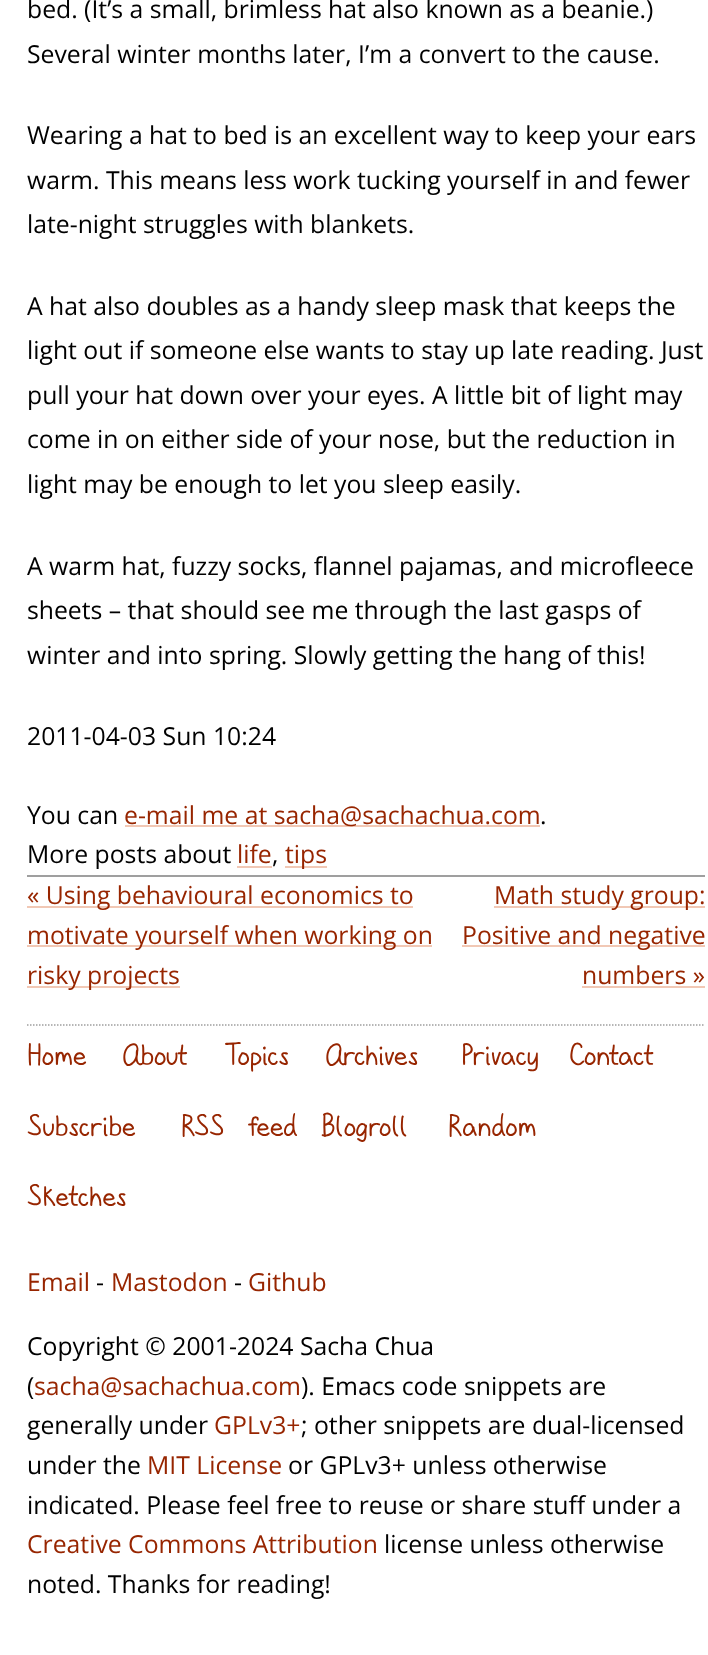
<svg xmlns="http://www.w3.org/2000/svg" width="708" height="1655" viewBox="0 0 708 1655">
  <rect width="100%" height="100%" fill="rgb(255,255,255)"/>
  <rect x="27" y="875" width="678" height="2" fill="rgb(159,159,159)"/>
  <g font-family="Open Sans" font-size="24.75" fill="rgb(0,0,0)">
    <text>
      <tspan x="27" y="18">bed. (It’s a small, brimless hat also known as a beanie.)</tspan>
      <tspan x="27" y="63">Several winter months later, I’m a convert to the cause.</tspan>
    </text>
    <text>
      <tspan x="27" y="144">Wearing a hat to bed is an excellent way to keep your ears</tspan>
      <tspan x="27" y="189">warm. This means less work tucking yourself in and fewer</tspan>
      <tspan x="27" y="233">late-night struggles with blankets.</tspan>
    </text>
    <text>
      <tspan x="27" y="315">A hat also doubles as a handy sleep mask that keeps the</tspan>
      <tspan x="27" y="359">light out if someone else wants to stay up late reading. Just</tspan>
      <tspan x="27" y="404">pull your hat down over your eyes. A little bit of light may</tspan>
      <tspan x="27" y="448">come in on either side of your nose, but the reduction in</tspan>
      <tspan x="27" y="493">light may be enough to let you sleep easily.</tspan>
    </text>
    <text>
      <tspan x="27" y="575">A warm hat, fuzzy socks, flannel pajamas, and microfleece</tspan>
      <tspan x="27" y="619">sheets – that should see me through the last gasps of</tspan>
      <tspan x="27" y="664">winter and into spring. Slowly getting the hang of this!</tspan>
    </text>
    <text x="27" y="745">2011-04-03 Sun 10:24</text>
    <text x="27" y="824">You can</text>
  </g>
  <rect x="125" y="825" width="415" height="2" fill="rgb(241,200,181)"/>
  <text x="124" y="824" font-family="Open Sans" font-size="24.75" fill="rgb(151,37,0)">e-mail me at sacha@sachachua.com</text>
  <g font-family="Open Sans" font-size="24.75" fill="rgb(0,0,0)">
    <text x="540" y="824">.</text>
    <text x="27" y="863">More posts about</text>
  </g>
  <text x="237" y="863" font-family="Open Sans" font-size="24.75" fill="rgb(151,37,0)">life</text>
  <rect x="237" y="866" width="35" height="2" fill="rgb(241,200,181)"/>
  <text x="272" y="863" font-family="Open Sans" font-size="24.75" fill="rgb(0,0,0)">,</text>
  <rect x="285" y="866" width="42" height="2" fill="rgb(241,200,181)"/>
  <text x="285" y="863" font-family="Open Sans" font-size="24.75" fill="rgb(151,37,0)">tips</text>
  <rect x="27" y="906" width="386" height="2" fill="rgb(241,200,181)"/>
  <text x="27" y="904" font-family="Open Sans" font-size="24.75" fill="rgb(151,37,0)">« Using behavioural economics to</text>
  <rect x="27" y="945" width="405" height="2" fill="rgb(241,200,181)"/>
  <text x="27" y="944" font-family="Open Sans" font-size="24.75" fill="rgb(151,37,0)">motivate yourself when working on</text>
  <rect x="27" y="986" width="153" height="2" fill="rgb(241,200,181)"/>
  <text x="27" y="984" font-family="Open Sans" font-size="24.75" fill="rgb(151,37,0)">risky projects</text>
  <rect x="494" y="906" width="211" height="2" fill="rgb(241,200,181)"/>
  <text x="494" y="904" font-family="Open Sans" font-size="24.75" fill="rgb(151,37,0)">Math study group:</text>
  <rect x="462" y="945" width="243" height="2" fill="rgb(241,200,181)"/>
  <g font-family="Open Sans" font-size="24.75" fill="rgb(151,37,0)">
    <text x="462" y="944">Positive and negative</text>
    <text x="582" y="984">numbers »</text>
  </g>
  <rect x="582" y="986" width="123" height="2" fill="rgb(241,200,181)"/>
  <path d="M27 1025H705" fill="none" stroke="rgb(159,159,159)" stroke-width="1.5" stroke-dasharray="1.5 1.5"/>
  <g font-family="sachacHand" font-size="33.5" fill="rgb(151,37,0)">
    <text x="27" y="1065">Home</text>
    <text x="122" y="1065">About</text>
    <text x="224" y="1065">Topics</text>
    <text x="325" y="1065">Archives</text>
    <text x="461" y="1065">Privacy</text>
    <text x="569" y="1065">Contact</text>
    <text x="27" y="1136">Subscribe</text>
    <text x="181" y="1136" word-spacing="19">RSS feed</text>
    <text x="321" y="1136">Blogroll</text>
    <text x="448" y="1136">Random</text>
    <text x="27" y="1206">Sketches</text>
  </g>
  <text x="27" y="1291" font-family="Open Sans" font-size="24.75" fill="rgb(151,37,0)">Email</text>
  <text x="96" y="1291" font-family="Open Sans" font-size="24.75" fill="rgb(0,0,0)">-</text>
  <text x="111" y="1291" font-family="Open Sans" font-size="24.75" fill="rgb(151,37,0)">Mastodon</text>
  <text x="234" y="1291" font-family="Open Sans" font-size="24.75" fill="rgb(0,0,0)">-</text>
  <text x="248" y="1291" font-family="Open Sans" font-size="24.75" fill="rgb(151,37,0)">Github</text>
  <g font-family="Open Sans" font-size="24.75" fill="rgb(0,0,0)">
    <text>
      <tspan x="27" y="1355">Copyright © 2001-2024 Sacha Chua</tspan>
      <tspan x="27" y="1395">(</tspan>
    </text>
  </g>
  <text x="34" y="1395" font-family="Open Sans" font-size="24.75" fill="rgb(151,37,0)">sacha@sachachua.com</text>
  <g font-family="Open Sans" font-size="24.75" fill="rgb(0,0,0)">
    <text x="301" y="1395">). Emacs code snippets are</text>
    <text x="27" y="1434">generally under</text>
  </g>
  <text x="214" y="1434" font-family="Open Sans" font-size="24.75" fill="rgb(151,37,0)">GPLv3+</text>
  <g font-family="Open Sans" font-size="24.75" fill="rgb(0,0,0)">
    <text x="301" y="1434">; other snippets are dual-licensed</text>
    <text x="27" y="1474">under the</text>
  </g>
  <text x="147" y="1474" font-family="Open Sans" font-size="24.75" fill="rgb(151,37,0)">MIT License</text>
  <g font-family="Open Sans" font-size="24.75" fill="rgb(0,0,0)">
    <text x="288" y="1474">or GPLv3+ unless otherwise</text>
    <text x="27" y="1514">indicated. Please feel free to reuse or share stuff under a</text>
  </g>
  <text x="27" y="1553" font-family="Open Sans" font-size="24.75" fill="rgb(151,37,0)">Creative Commons Attribution</text>
  <g font-family="Open Sans" font-size="24.75" fill="rgb(0,0,0)">
    <text x="384" y="1553">license unless otherwise</text>
    <text x="27" y="1593">noted. Thanks for reading!</text>
  </g>
</svg>
